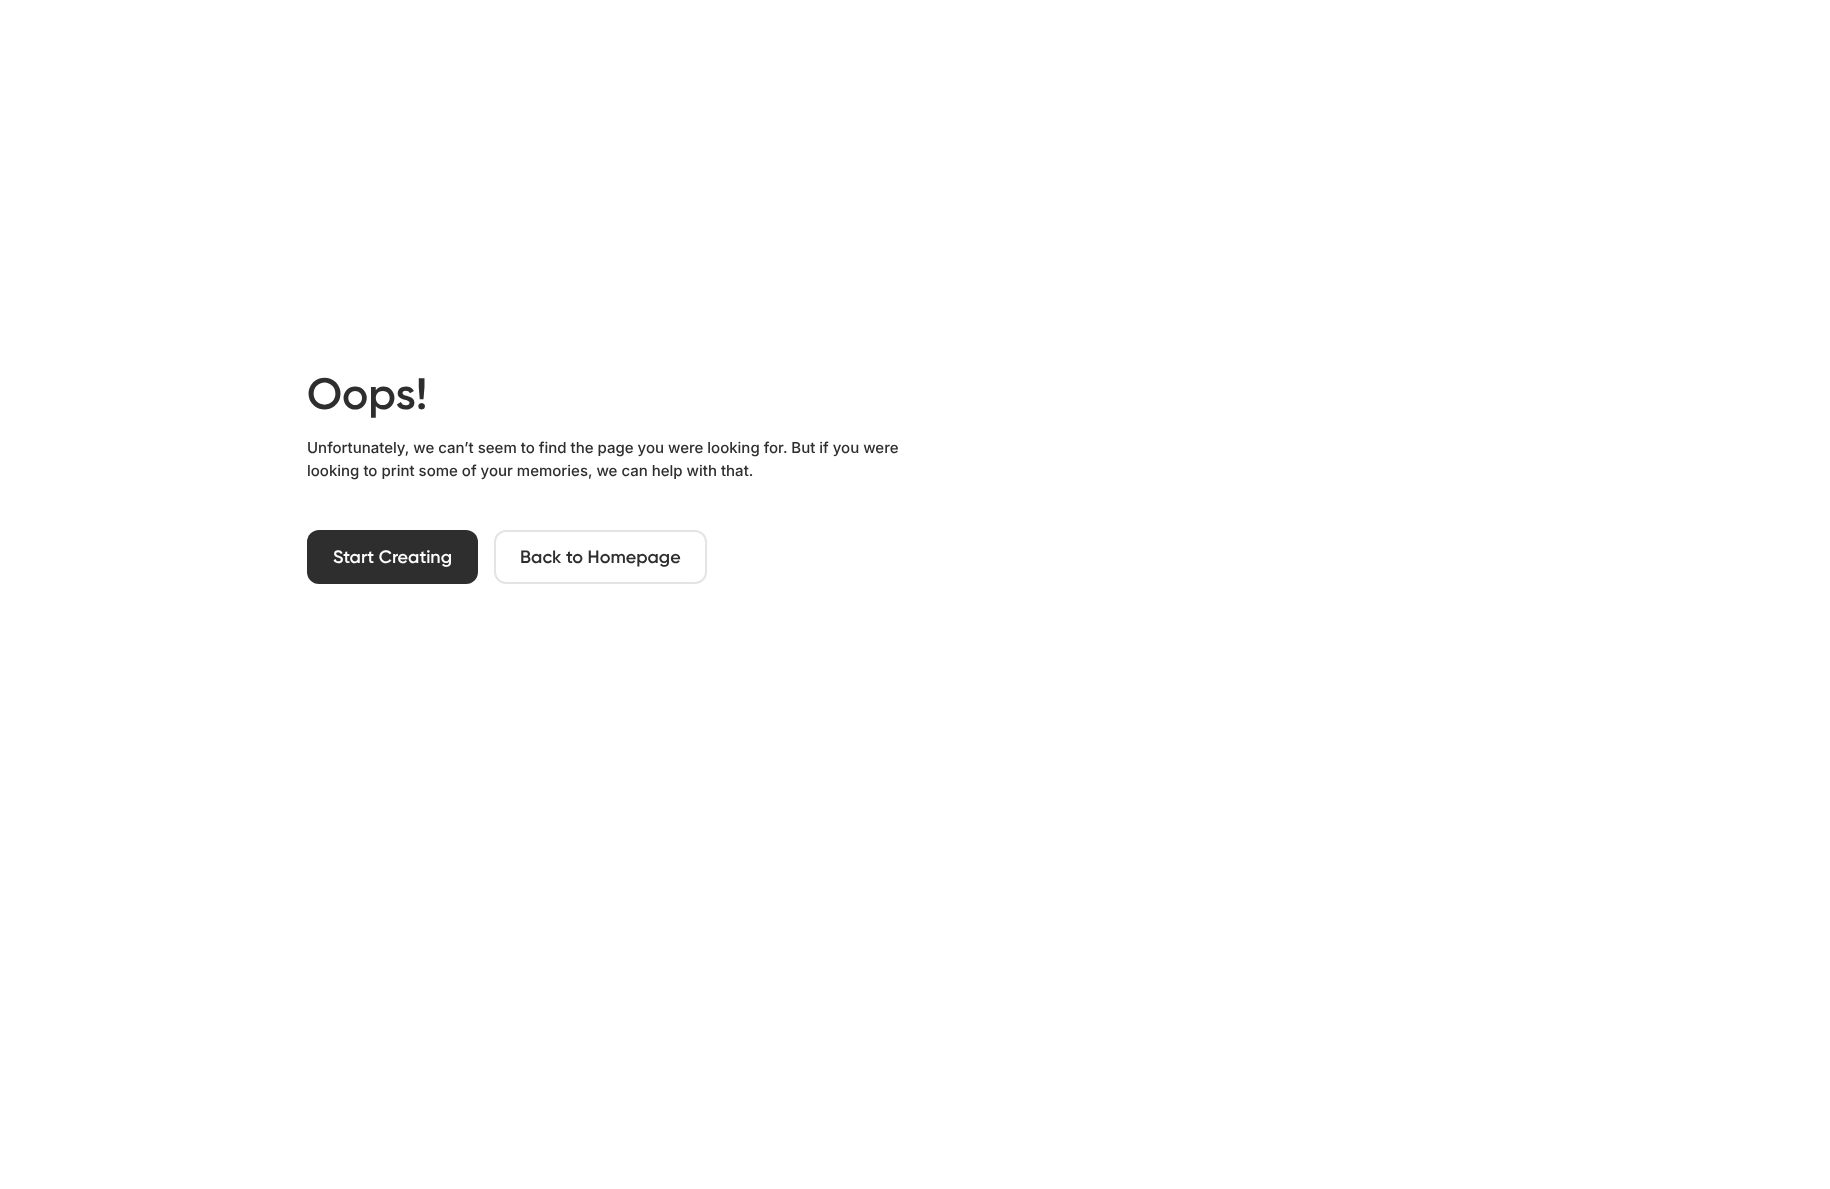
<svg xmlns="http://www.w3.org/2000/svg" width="1830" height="1189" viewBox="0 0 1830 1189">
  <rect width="100%" height="100%" fill="rgb(255,255,255)"/>
  <text x="307" y="409" font-family="Gilroy" font-size="44" font-weight="600" fill="rgb(46,46,46)">Oops!</text>
  <g font-family="Inter" font-size="15" font-weight="500" fill="rgb(46,46,46)">
    <text>
      <tspan x="307" y="453">Unfortunately, we can’t seem to find the page you were looking for. But if you were</tspan>
      <tspan x="307" y="476">looking to print some of your memories, we can help with that.</tspan>
    </text>
  </g>
  <rect x="307" y="530" width="171" height="54" rx="12" fill="rgb(46,46,46)"/>
  <text x="333" y="563" font-family="Gilroy" font-size="18" font-weight="600" fill="rgb(255,255,255)">Start Creating</text>
  <rect x="495" y="531" width="211" height="52" rx="11" fill="none" stroke="rgb(228,228,228)" stroke-width="2"/>
  <text x="520" y="563" font-family="Gilroy" font-size="18" font-weight="600" fill="rgb(46,46,46)">Back to Homepage</text>
</svg>
